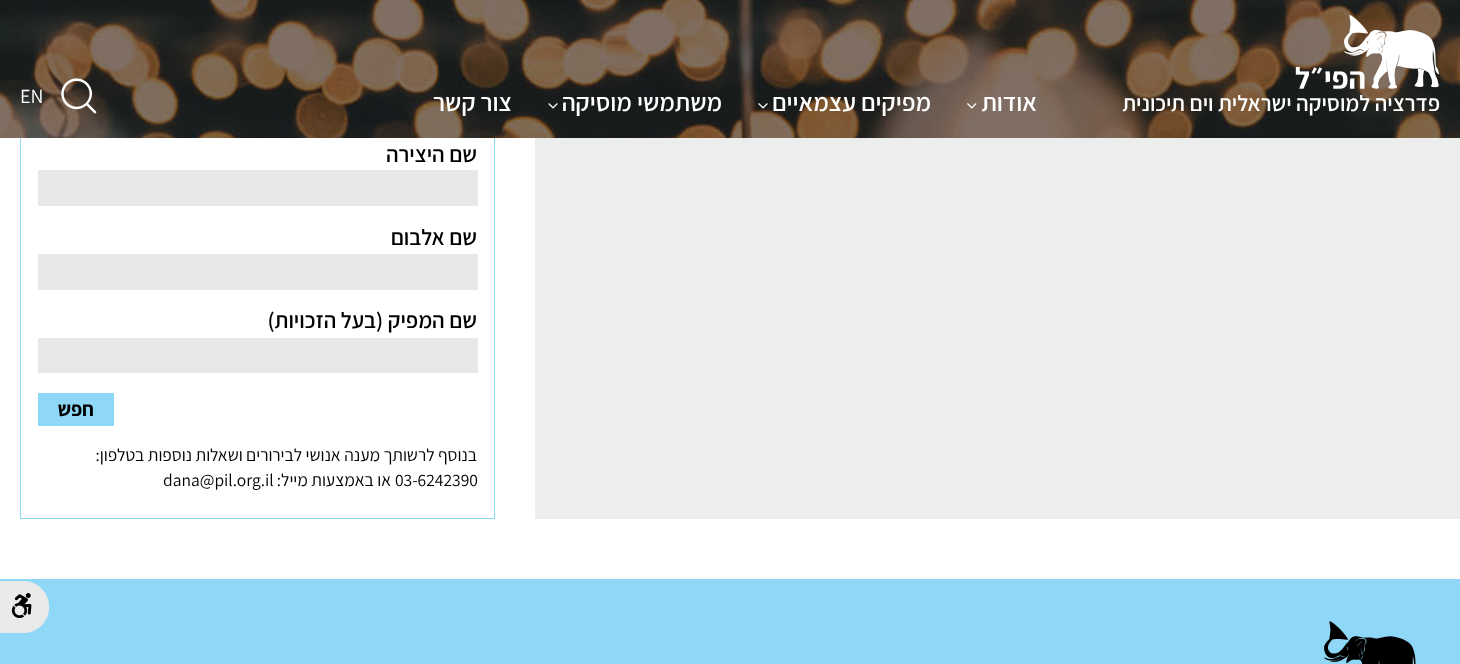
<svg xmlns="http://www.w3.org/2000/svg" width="1460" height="664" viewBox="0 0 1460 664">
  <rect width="100%" height="100%" fill="rgb(142,215,247)"/>
  <rect x="0" y="138" width="1460" height="441" fill="rgb(255,255,255)"/>
  <rect x="20.5" y="-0.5" width="474" height="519" fill="none" stroke="rgb(142,215,247)"/>
  <image x="0" y="0" width="1460" height="138" href="pic1.png"/>
  <image x="1295" y="15" width="145" height="74" href="pic2.png"/>
  <text x="1440" y="111" font-family="Assistant" font-size="22.5" font-weight="600" direction="rtl" fill="rgb(255,255,255)">פדרציה למוסיקה ישראלית וים תיכונית</text>
  <text x="1037" y="111" font-family="Assistant" font-size="25" font-weight="600" direction="rtl" fill="rgb(255,255,255)">אודות</text>
  <image x="967" y="103" width="10" height="6" href="pic3.png"/>
  <text x="931" y="111" font-family="Assistant" font-size="25" font-weight="600" direction="rtl" fill="rgb(255,255,255)">מפיקים עצמאיים</text>
  <image x="758" y="103" width="10" height="6" href="pic4.png"/>
  <text x="722" y="111" font-family="Assistant" font-size="25" font-weight="600" direction="rtl" fill="rgb(255,255,255)">משתמשי מוסיקה</text>
  <image x="548" y="103" width="10" height="6" href="pic5.png"/>
  <text x="512" y="111" font-family="Assistant" font-size="25" font-weight="600" direction="rtl" fill="rgb(255,255,255)">צור קשר</text>
  <image x="61" y="78" width="36" height="36" href="pic6.png"/>
  <text x="20" y="103" font-family="Assistant" font-size="20" fill="rgb(255,255,255)">EN</text>
  <rect x="535" y="138" width="925" height="381" fill="rgb(236,237,237)"/>
  <text x="477" y="162" font-family="Assistant" font-size="22.5" font-weight="600" direction="rtl" fill="rgb(0,0,0)">שם היצירה</text>
  <rect x="38" y="170" width="440" height="36" fill="rgb(231,231,232)"/>
  <text x="477" y="245" font-family="Assistant" font-size="22.5" font-weight="600" direction="rtl" fill="rgb(0,0,0)">שם אלבום</text>
  <rect x="38" y="254" width="440" height="36" fill="rgb(231,231,232)"/>
  <text x="477" y="328" font-family="Assistant" font-size="22.5" font-weight="600" direction="rtl" fill="rgb(0,0,0)">שם המפיק (בעל הזכויות)</text>
  <rect x="38" y="338" width="440" height="35" fill="rgb(231,231,232)"/>
  <rect x="38" y="393" width="76" height="33" fill="rgb(142,215,247)"/>
  <text x="94" y="416" font-family="Assistant" font-size="20" font-weight="bold" direction="rtl" fill="rgb(0,0,0)">חפש</text>
  <text x="477" y="461" font-family="Assistant" font-size="17.5" direction="rtl" fill="rgb(0,0,0)">בנוסף לרשותך מענה אנושי לבירורים ושאלות נוספות בטלפון:</text>
  <text x="395" y="486" font-family="Assistant" font-size="17.5" fill="rgb(0,0,0)">03-6242390</text>
  <text x="391" y="486" font-family="Assistant" font-size="17.5" direction="rtl" fill="rgb(0,0,0)">או באמצעות מייל:</text>
  <text x="163" y="486" font-family="Assistant" font-size="17.5" fill="rgb(0,0,0)">dana@pil.org.il</text>
  <path d="M.5 581.5H24C37.5 581.5 48.5 592.5 48.5 606V608C48.5 621.5 37.5 632.5 24 632.5H.5Z" fill="rgb(234,234,234)" stroke="rgb(234,234,234)"/>
  <image x="11" y="593" width="21" height="25" href="pic7.png"/>
  <image x="1324" y="621" width="92" height="43" href="pic8.png"/>
</svg>
